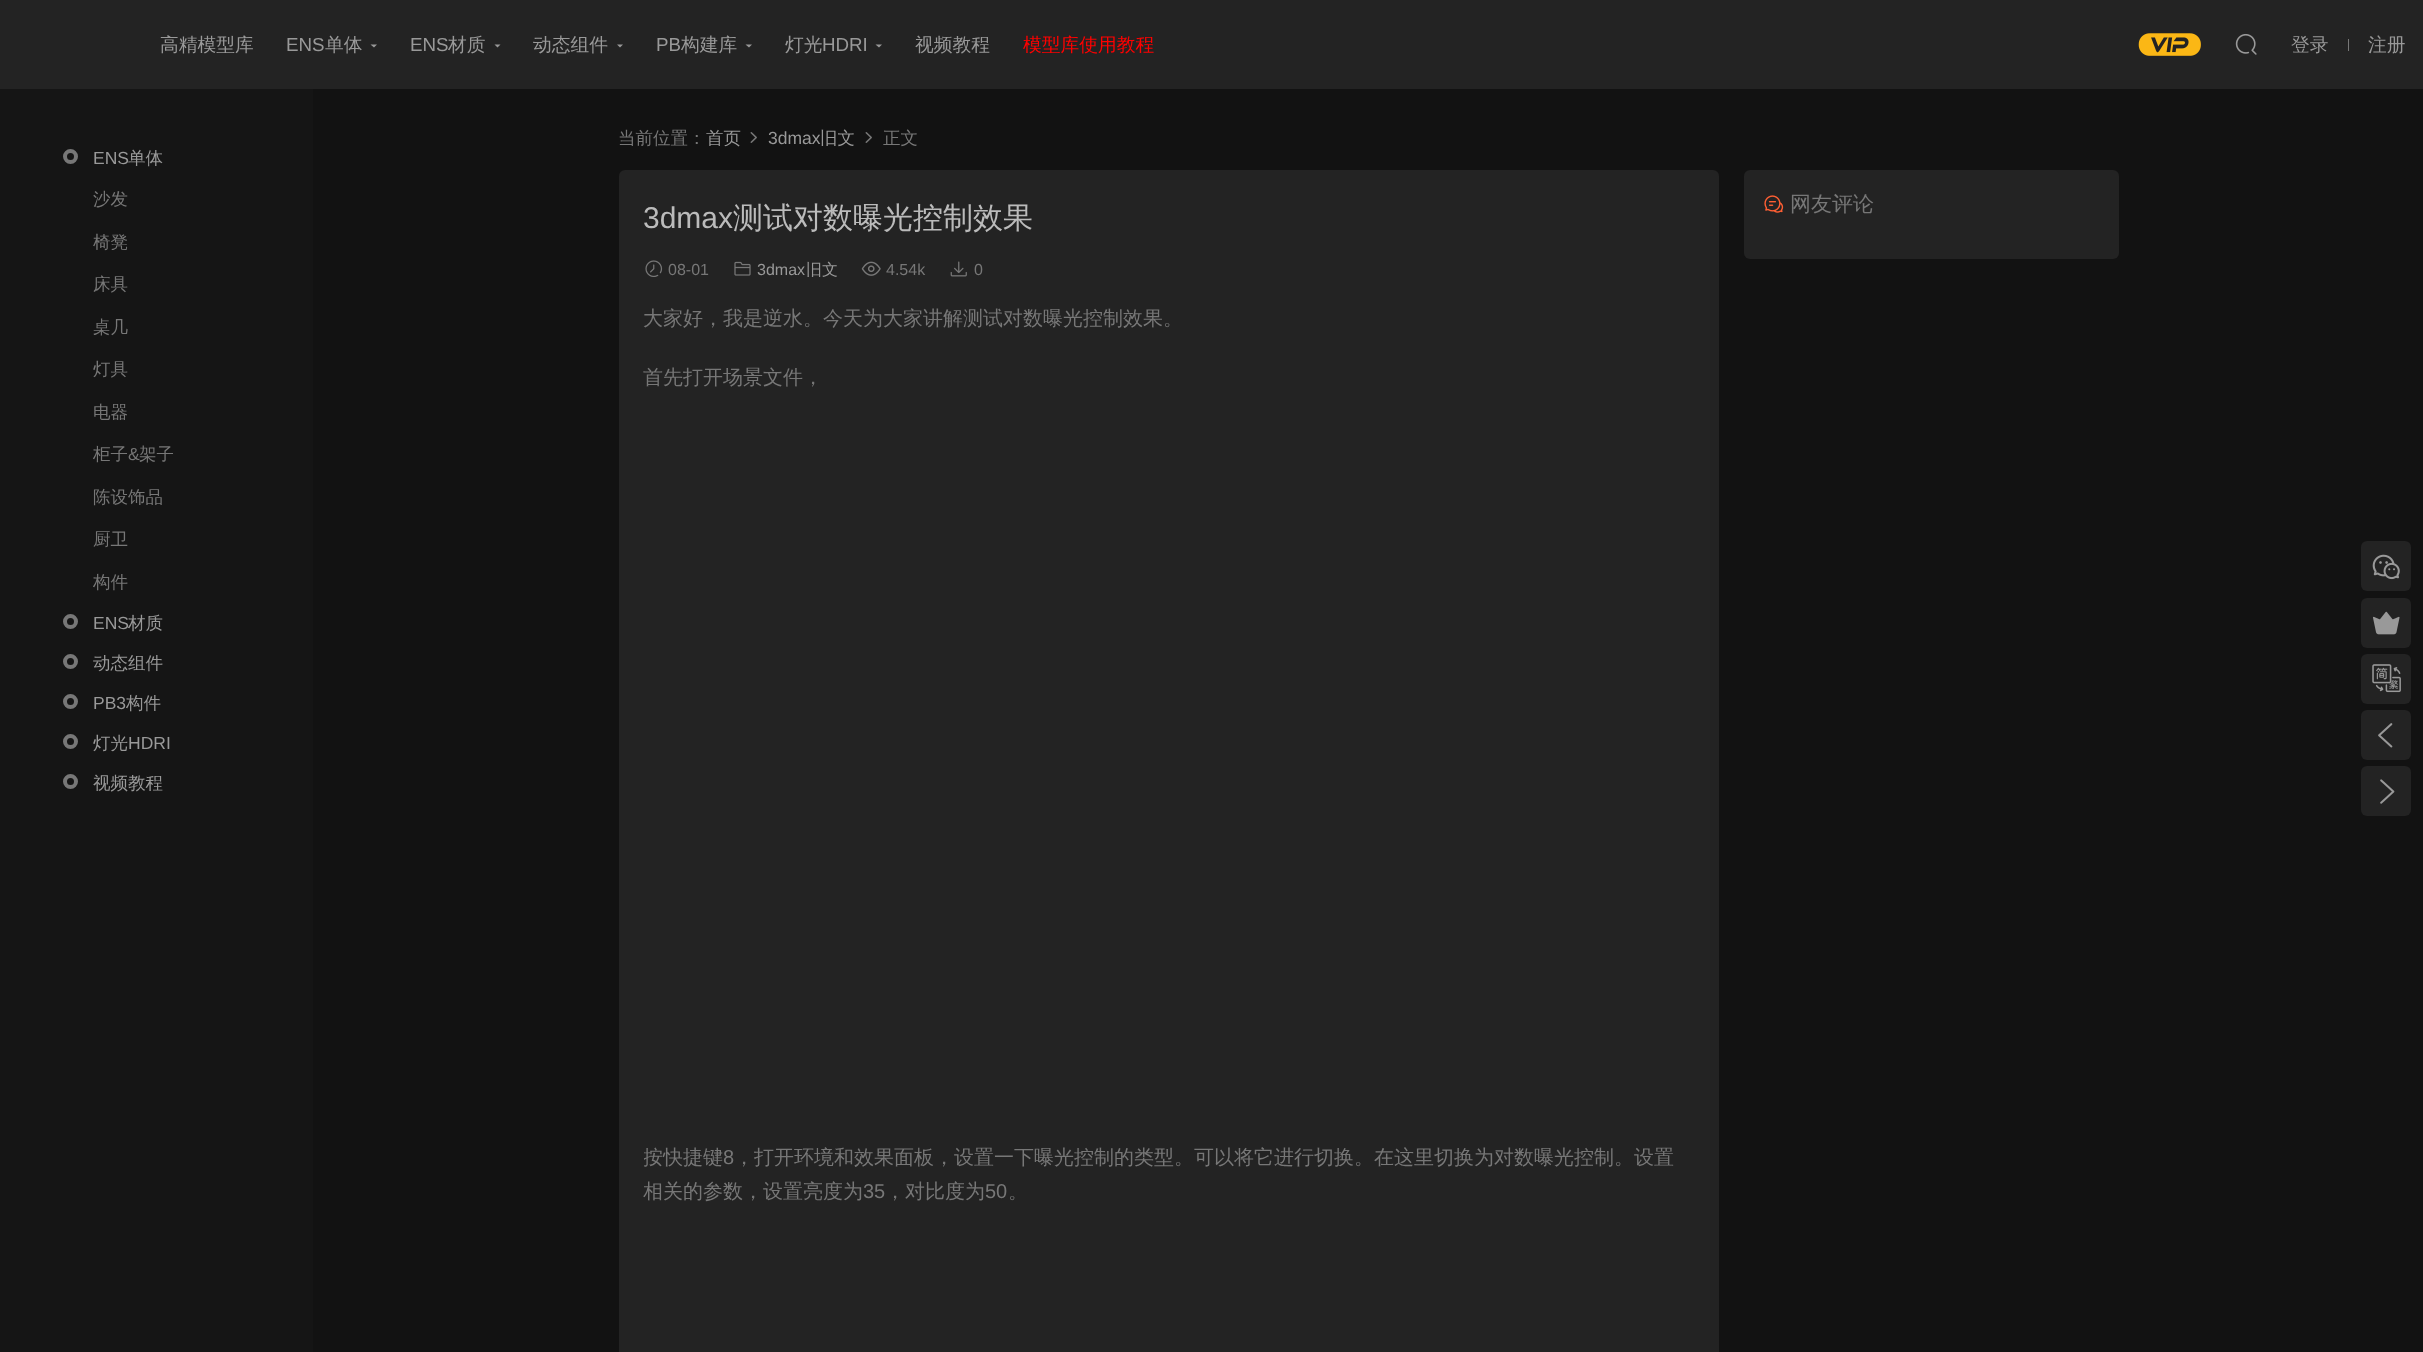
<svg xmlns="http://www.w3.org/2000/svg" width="2423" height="1352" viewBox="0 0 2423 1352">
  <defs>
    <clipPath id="clip1"><rect x="644" y="1140" width="1050" height="69"/></clipPath>
  </defs>
  <rect width="100%" height="100%" fill="rgb(18,18,18)"/>
  <rect x="0" y="0" width="2423" height="89" fill="rgb(35,35,35)"/>
  <text x="160" y="51" font-family="WenQuanYi Zen Hei" font-size="18.75" font-weight="500" fill="rgb(153,153,153)">高精模型库</text>
  <text x="286" y="51" font-family="Liberation Sans" font-size="18.75" fill="rgb(153,153,153)">ENS</text>
  <text x="325" y="51" font-family="WenQuanYi Zen Hei" font-size="18.75" font-weight="500" fill="rgb(153,153,153)">单体</text>
  <path d="M377 44.5H370.5L374 47.5Z" fill="rgb(153,153,153)"/>
  <text x="410" y="51" font-family="Liberation Sans" font-size="18.75" fill="rgb(153,153,153)">ENS</text>
  <text x="448" y="51" font-family="WenQuanYi Zen Hei" font-size="18.75" font-weight="500" fill="rgb(153,153,153)">材质</text>
  <path d="M500.5 44.5H494.5L497.5 47.5Z" fill="rgb(153,153,153)"/>
  <text x="533" y="51" font-family="WenQuanYi Zen Hei" font-size="18.75" font-weight="500" fill="rgb(153,153,153)">动态组件</text>
  <path d="M623 44.5H617L620 47.5Z" fill="rgb(153,153,153)"/>
  <text x="656" y="51" font-family="Liberation Sans" font-size="18.75" fill="rgb(153,153,153)">PB</text>
  <text x="681" y="51" font-family="WenQuanYi Zen Hei" font-size="18.75" font-weight="500" fill="rgb(153,153,153)">构建库</text>
  <path d="M752 44.5H745.5L749 47.5Z" fill="rgb(153,153,153)"/>
  <text x="785" y="51" font-family="WenQuanYi Zen Hei" font-size="18.75" font-weight="500" fill="rgb(153,153,153)">灯光</text>
  <text x="822" y="51" font-family="Liberation Sans" font-size="18.75" fill="rgb(153,153,153)">HDRI</text>
  <path d="M882 44.5H875.5L879 47.5Z" fill="rgb(153,153,153)"/>
  <text x="915" y="51" font-family="WenQuanYi Zen Hei" font-size="18.75" font-weight="500" fill="rgb(153,153,153)">视频教程</text>
  <text x="1023" y="51" font-family="WenQuanYi Zen Hei" font-size="18.75" font-weight="500" fill="rgb(255,0,0)">模型库使用教程</text>
  <image x="2138" y="33" width="63" height="23" href="pic1.png"/>
  <image x="2235" y="33" width="22" height="22" href="pic2.png"/>
  <text x="2291" y="51" font-family="WenQuanYi Zen Hei" font-size="18.75" font-weight="500" fill="rgb(153,153,153)">登录</text>
  <rect x="2348" y="39" width="1" height="12" fill="rgb(119,119,119)"/>
  <text x="2368" y="51" font-family="WenQuanYi Zen Hei" font-size="18.75" font-weight="500" fill="rgb(153,153,153)">注册</text>
  <rect x="0" y="89" width="313" height="1263" fill="rgb(21,21,21)"/>
  <circle cx="70.5" cy="156.5" r="5.5" fill="none" stroke="rgb(119,119,119)" stroke-width="4"/>
  <text x="93" y="164" font-family="Liberation Sans" font-size="17.5" fill="rgb(153,153,153)">ENS</text>
  <text x="128" y="164" font-family="WenQuanYi Zen Hei" font-size="17.5" font-weight="500" fill="rgb(153,153,153)">单体</text>
  <g font-family="WenQuanYi Zen Hei" font-size="17.5" font-weight="500" fill="rgb(119,119,119)">
    <text x="93" y="205">沙发</text>
    <text x="93" y="248">椅凳</text>
    <text x="93" y="290">床具</text>
    <text x="93" y="333">桌几</text>
    <text x="93" y="375">灯具</text>
    <text x="93" y="418">电器</text>
    <text x="93" y="460">柜子</text>
  </g>
  <text x="128" y="460" font-family="Liberation Sans" font-size="17.5" fill="rgb(119,119,119)">&amp;</text>
  <g font-family="WenQuanYi Zen Hei" font-size="17.5" font-weight="500" fill="rgb(119,119,119)">
    <text x="139" y="460">架子</text>
    <text x="93" y="503">陈设饰品</text>
    <text x="93" y="545">厨卫</text>
    <text x="93" y="588">构件</text>
  </g>
  <circle cx="70.5" cy="621.5" r="5.5" fill="none" stroke="rgb(119,119,119)" stroke-width="4"/>
  <text x="93" y="629" font-family="Liberation Sans" font-size="17.5" fill="rgb(153,153,153)">ENS</text>
  <text x="128" y="629" font-family="WenQuanYi Zen Hei" font-size="17.5" font-weight="500" fill="rgb(153,153,153)">材质</text>
  <circle cx="70.5" cy="661.5" r="5.5" fill="none" stroke="rgb(119,119,119)" stroke-width="4"/>
  <text x="93" y="669" font-family="WenQuanYi Zen Hei" font-size="17.5" font-weight="500" fill="rgb(153,153,153)">动态组件</text>
  <circle cx="70.5" cy="701.5" r="5.5" fill="none" stroke="rgb(119,119,119)" stroke-width="4"/>
  <text x="93" y="709" font-family="Liberation Sans" font-size="17.5" fill="rgb(153,153,153)">PB3</text>
  <text x="126" y="709" font-family="WenQuanYi Zen Hei" font-size="17.5" font-weight="500" fill="rgb(153,153,153)">构件</text>
  <circle cx="70.5" cy="741.5" r="5.5" fill="none" stroke="rgb(119,119,119)" stroke-width="4"/>
  <text x="93" y="749" font-family="WenQuanYi Zen Hei" font-size="17.5" font-weight="500" fill="rgb(153,153,153)">灯光</text>
  <text x="128" y="749" font-family="Liberation Sans" font-size="17.5" fill="rgb(153,153,153)">HDRI</text>
  <circle cx="70.5" cy="781.5" r="5.5" fill="none" stroke="rgb(119,119,119)" stroke-width="4"/>
  <text x="93" y="789" font-family="WenQuanYi Zen Hei" font-size="17.5" font-weight="500" fill="rgb(153,153,153)">视频教程</text>
  <text x="618" y="144" font-family="WenQuanYi Zen Hei" font-size="17.5" font-weight="500" fill="rgb(119,119,119)">当前位置：</text>
  <text x="706" y="144" font-family="WenQuanYi Zen Hei" font-size="17.5" font-weight="500" fill="rgb(153,153,153)">首页</text>
  <image x="750" y="132" width="7" height="11" href="pic3.png"/>
  <text x="768" y="144" font-family="Liberation Sans" font-size="17.5" fill="rgb(153,153,153)">3dmax</text>
  <text x="820" y="144" font-family="WenQuanYi Zen Hei" font-size="17.5" font-weight="500" fill="rgb(153,153,153)">旧文</text>
  <image x="865" y="132" width="7" height="11" href="pic3.png"/>
  <text x="883" y="144" font-family="WenQuanYi Zen Hei" font-size="17.5" font-weight="500" fill="rgb(119,119,119)">正文</text>
  <rect x="619" y="170" width="1100" height="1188" rx="6" fill="rgb(35,35,35)"/>
  <text x="643" y="228" font-family="Liberation Sans" font-size="30" fill="rgb(187,187,187)">3dmax</text>
  <text x="733" y="228" font-family="WenQuanYi Zen Hei" font-size="30" font-weight="500" fill="rgb(187,187,187)">测试对数曝光控制效果</text>
  <image x="645" y="260" width="18" height="17" href="pic4.png"/>
  <text x="668" y="275" font-family="Liberation Sans" font-size="16" fill="rgb(119,119,119)">08-01</text>
  <image x="734" y="261" width="17" height="15" href="pic5.png"/>
  <text x="757" y="275" font-family="Liberation Sans" font-size="16" fill="rgb(153,153,153)">3dmax</text>
  <text x="806" y="275" font-family="WenQuanYi Zen Hei" font-size="16" font-weight="500" fill="rgb(153,153,153)">旧文</text>
  <image x="861" y="261" width="20" height="15" href="pic6.png"/>
  <text x="886" y="275" font-family="Liberation Sans" font-size="16" fill="rgb(119,119,119)">4.54k</text>
  <image x="950" y="261" width="17" height="16" href="pic7.png"/>
  <text x="974" y="275" font-family="Liberation Sans" font-size="16" fill="rgb(119,119,119)">0</text>
  <g font-family="WenQuanYi Zen Hei" font-size="20" font-weight="500" fill="rgb(119,119,119)">
    <text x="643" y="325">大家好，我是逆水。今天为大家讲解测试对数曝光控制效果。</text>
    <text x="643" y="384">首先打开场景文件，</text>
  </g>
  <g clip-path="url(#clip1)">
    <text x="643" y="1164" font-family="WenQuanYi Zen Hei" font-size="20" font-weight="500" fill="rgb(119,119,119)">按快捷键</text>
  </g>
  <text x="723" y="1164" font-family="Liberation Sans" font-size="20" fill="rgb(119,119,119)">8</text>
  <g font-family="WenQuanYi Zen Hei" font-size="20" font-weight="500" fill="rgb(119,119,119)">
    <text x="734" y="1164">，打开环境和效果面板，设置一下曝光控制的类型。可以将它进行切换。在这里切换为对数曝光控制。设置</text>
    <text x="643" y="1198">相关的参数，设置亮度为</text>
  </g>
  <text x="863" y="1198" font-family="Liberation Sans" font-size="20" fill="rgb(119,119,119)">35</text>
  <text x="885" y="1198" font-family="WenQuanYi Zen Hei" font-size="20" font-weight="500" fill="rgb(119,119,119)">，对比度为</text>
  <text x="985" y="1198" font-family="Liberation Sans" font-size="20" fill="rgb(119,119,119)">50</text>
  <text x="1008" y="1198" font-family="WenQuanYi Zen Hei" font-size="20" font-weight="500" fill="rgb(119,119,119)">。</text>
  <rect x="1744" y="170" width="375" height="89" rx="6" fill="rgb(35,35,35)"/>
  <image x="1764" y="195" width="20" height="18" href="pic8.png"/>
  <text x="1790" y="211" font-family="WenQuanYi Zen Hei" font-size="21" font-weight="500" fill="rgb(119,119,119)">网友评论</text>
  <rect x="2361" y="541" width="50" height="50" rx="6" fill="rgb(35,35,35)"/>
  <image x="2372" y="554" width="28" height="26" href="pic9.png"/>
  <rect x="2361" y="598" width="50" height="50" rx="6" fill="rgb(35,35,35)"/>
  <image x="2373" y="611" width="27" height="24" href="pic10.png"/>
  <rect x="2361" y="654" width="50" height="50" rx="6" fill="rgb(35,35,35)"/>
  <image x="2372" y="664" width="29" height="29" href="pic11.png"/>
  <rect x="2361" y="710" width="50" height="50" rx="6" fill="rgb(35,35,35)"/>
  <image x="2378" y="723" width="15" height="25" href="pic12.png"/>
  <rect x="2361" y="766" width="50" height="50" rx="6" fill="rgb(35,35,35)"/>
  <image x="2380" y="779" width="15" height="25" href="pic13.png"/>
</svg>
